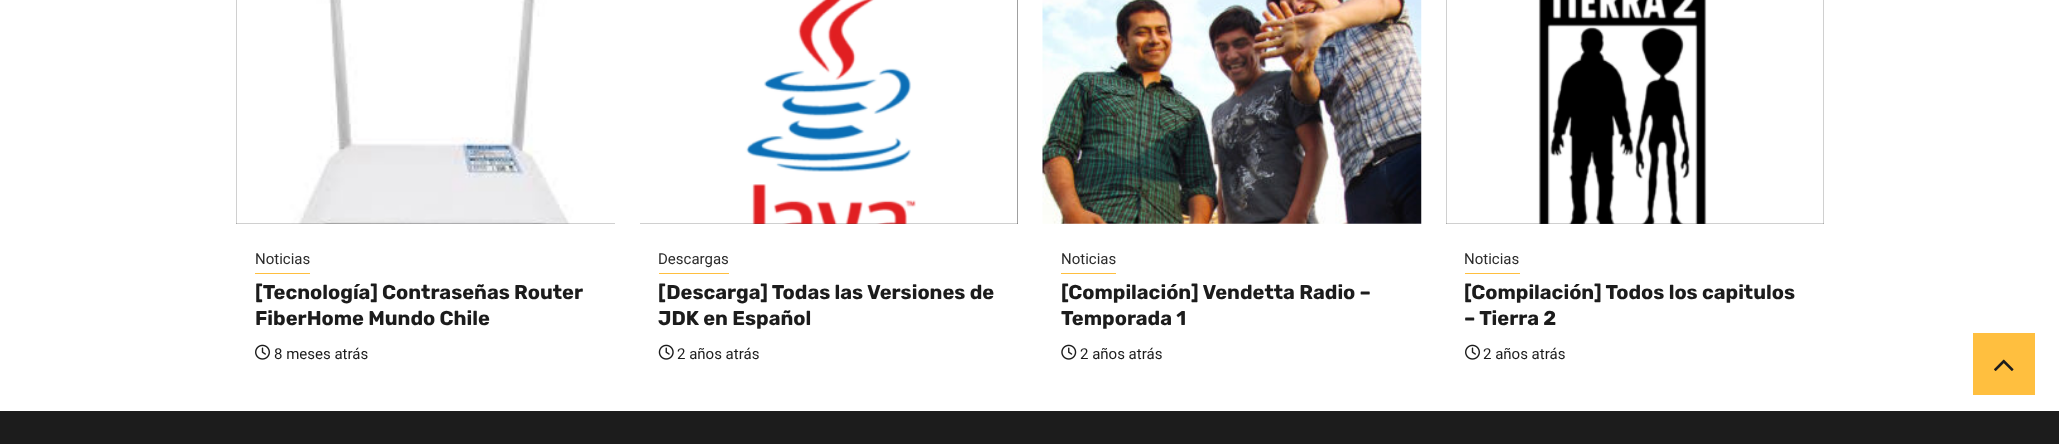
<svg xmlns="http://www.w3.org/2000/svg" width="2059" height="444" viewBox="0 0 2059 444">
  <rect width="100%" height="100%" fill="rgb(255,255,255)"/>
  <rect x="236" y="0" width="379" height="224" fill="rgb(64,64,64)"/>
  <image x="236" y="0" width="379" height="224" href="pic1.png"/>
  <rect x="255" y="273" width="55" height="1" fill="rgb(255,191,63)"/>
  <text x="255" y="264" font-family="Roboto" font-size="15" fill="rgb(43,43,43)">Noticias</text>
  <g font-family="Rubik" font-size="20" font-weight="bold" fill="rgb(28,28,28)">
    <text>
      <tspan x="255" y="299">[Tecnología] Contraseñas Router</tspan>
      <tspan x="255" y="325">FiberHome Mundo Chile</tspan>
    </text>
  </g>
  <image x="255" y="344" width="15" height="16" href="pic2.png"/>
  <text x="274" y="359" font-family="Roboto" font-size="15" fill="rgb(28,28,28)">8 meses atrás</text>
  <rect x="640" y="0" width="378" height="224" fill="rgb(64,64,64)"/>
  <image x="640" y="0" width="378" height="224" href="pic3.png"/>
  <rect x="659" y="273" width="70" height="1" fill="rgb(255,191,63)"/>
  <text x="658" y="264" font-family="Roboto" font-size="15" fill="rgb(43,43,43)">Descargas</text>
  <g font-family="Rubik" font-size="20" font-weight="bold" fill="rgb(28,28,28)">
    <text>
      <tspan x="658" y="299">[Descarga] Todas las Versiones de</tspan>
      <tspan x="658" y="325">JDK en Español</tspan>
    </text>
  </g>
  <image x="658" y="344" width="16" height="16" href="pic4.png"/>
  <text x="677" y="359" font-family="Roboto" font-size="15" fill="rgb(28,28,28)">2 años atrás</text>
  <image x="1042" y="0" width="380" height="224" href="pic5.png"/>
  <rect x="1061" y="273" width="55" height="1" fill="rgb(255,191,63)"/>
  <text x="1061" y="264" font-family="Roboto" font-size="15" fill="rgb(43,43,43)">Noticias</text>
  <g font-family="Rubik" font-size="20" font-weight="bold" fill="rgb(28,28,28)">
    <text>
      <tspan x="1061" y="299">[Compilación] Vendetta Radio –</tspan>
      <tspan x="1061" y="325">Temporada 1</tspan>
    </text>
  </g>
  <image x="1061" y="344" width="16" height="16" href="pic6.png"/>
  <text x="1080" y="359" font-family="Roboto" font-size="15" fill="rgb(28,28,28)">2 años atrás</text>
  <rect x="1446" y="0" width="378" height="224" fill="rgb(64,64,64)"/>
  <image x="1446" y="0" width="378" height="224" href="pic7.png"/>
  <rect x="1465" y="273" width="55" height="1" fill="rgb(255,191,63)"/>
  <text x="1464" y="264" font-family="Roboto" font-size="15" fill="rgb(43,43,43)">Noticias</text>
  <g font-family="Rubik" font-size="20" font-weight="bold" fill="rgb(28,28,28)">
    <text>
      <tspan x="1464" y="299">[Compilación] Todos los capitulos</tspan>
      <tspan x="1464" y="325">– Tierra 2</tspan>
    </text>
  </g>
  <image x="1465" y="344" width="15" height="16" href="pic2.png"/>
  <text x="1483" y="359" font-family="Roboto" font-size="15" fill="rgb(28,28,28)">2 años atrás</text>
  <rect x="0" y="411" width="2059" height="33" fill="rgb(28,28,28)"/>
  <rect x="1973" y="333" width="62" height="62" fill="rgb(255,191,63)"/>
  <image x="1994" y="359" width="20" height="12" href="pic8.png"/>
</svg>
